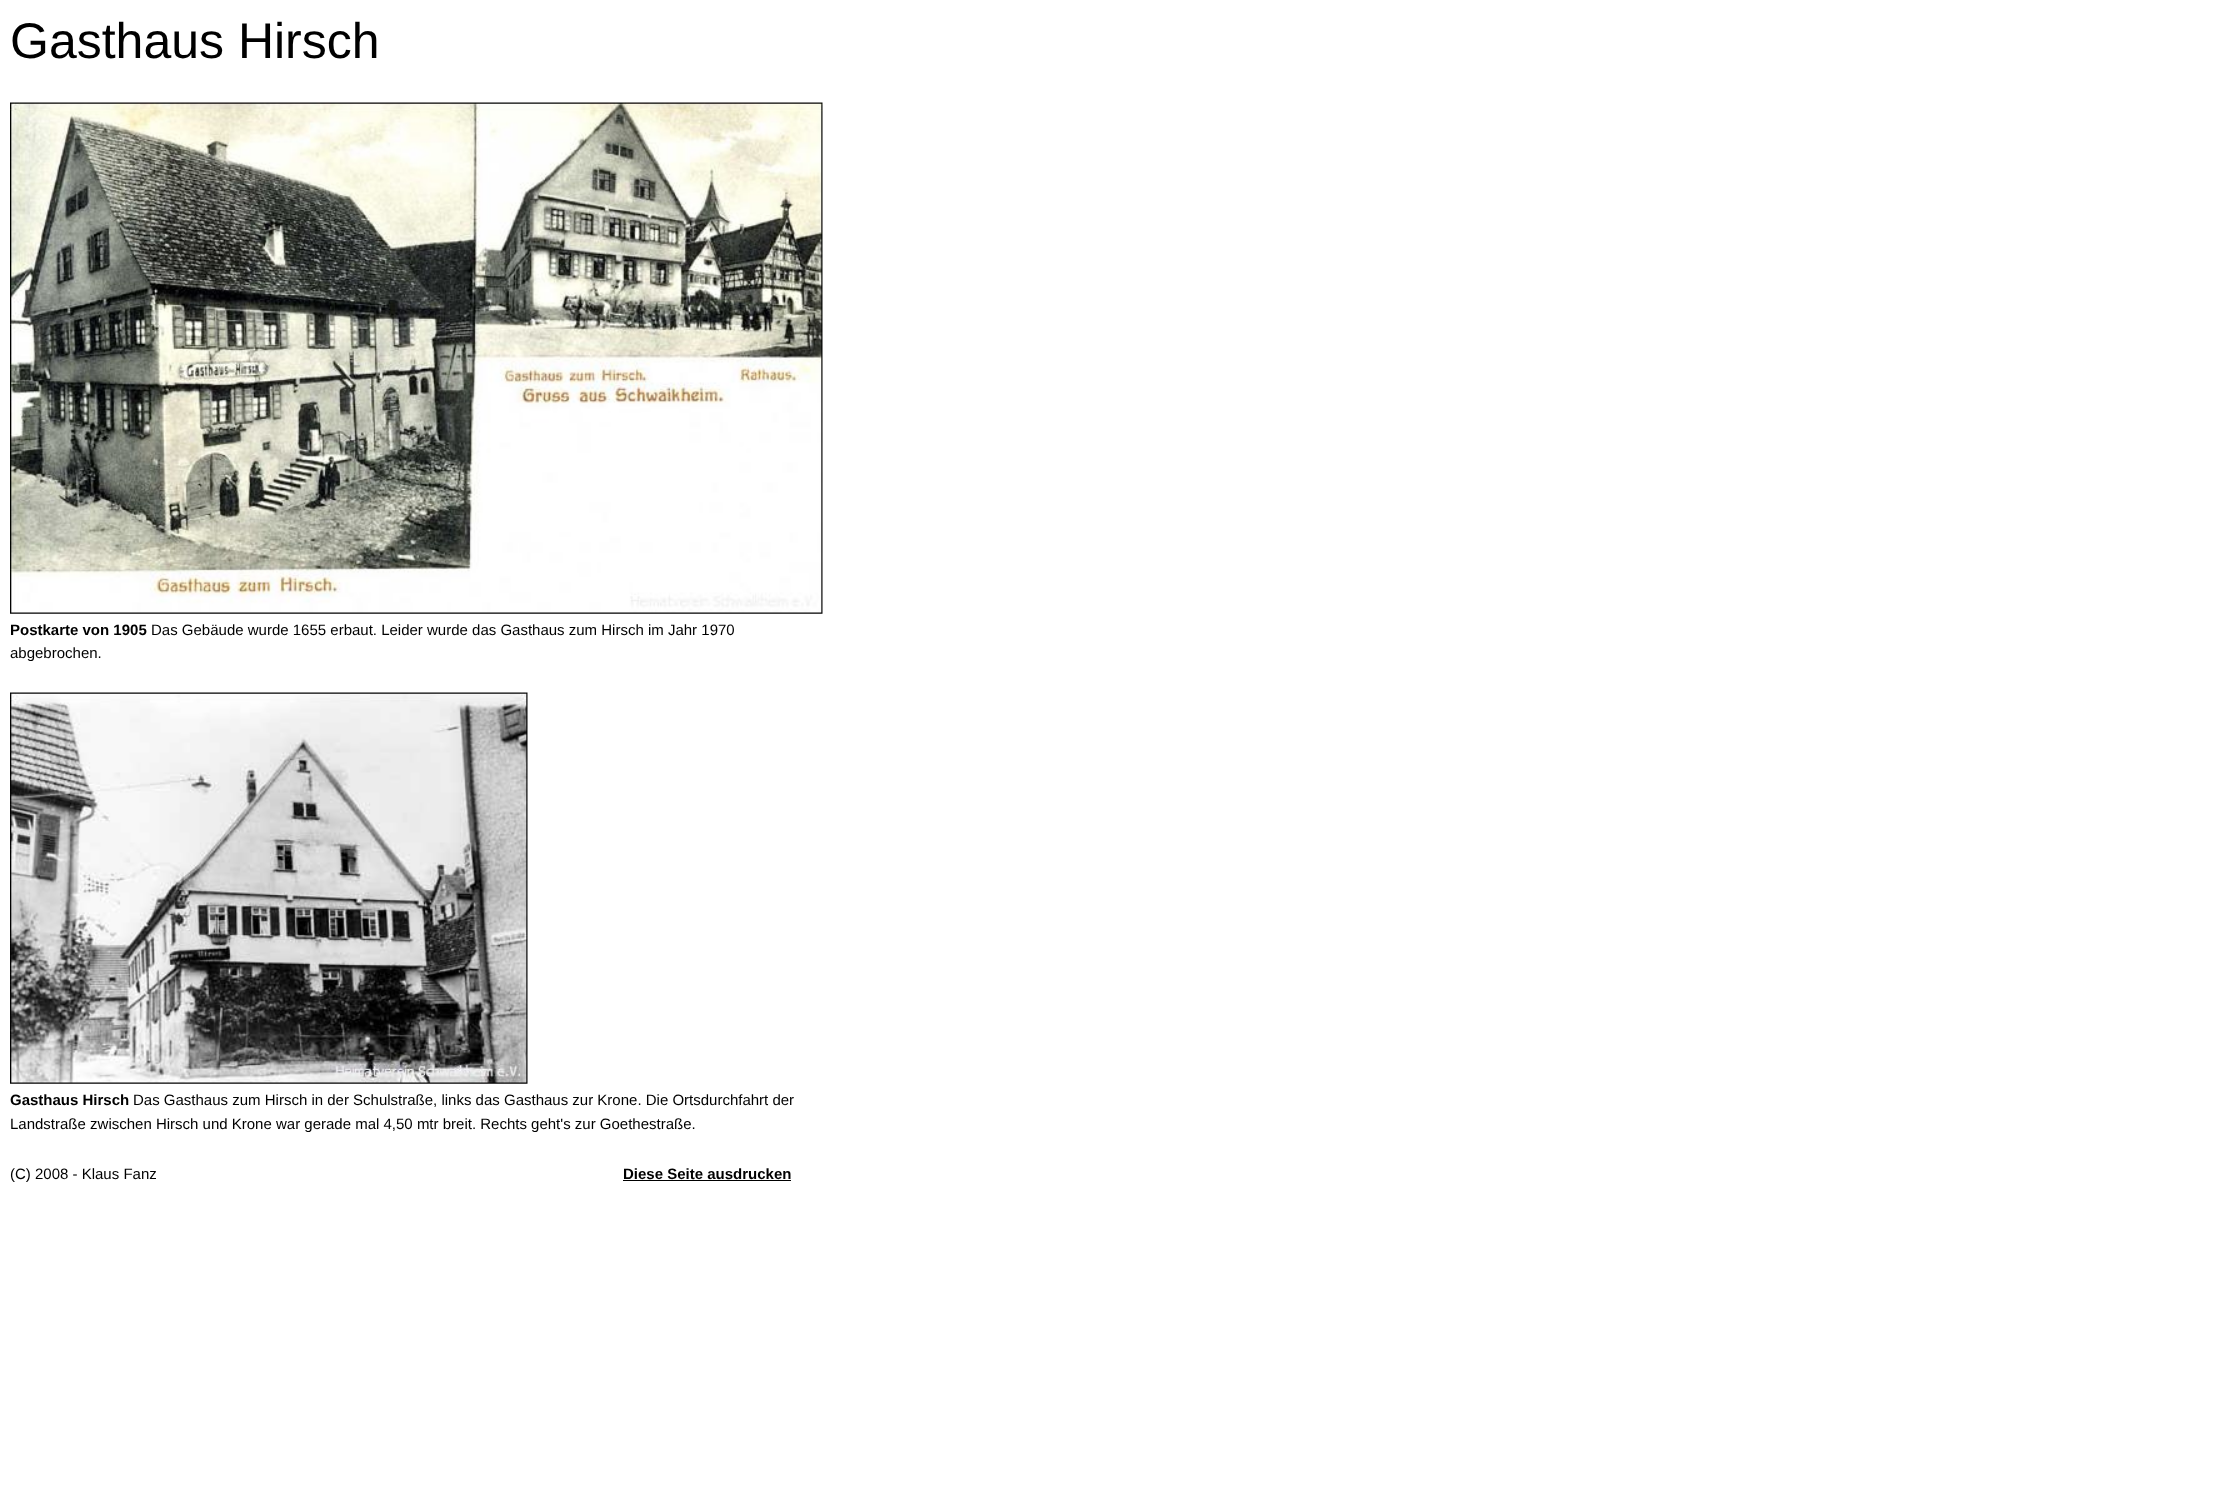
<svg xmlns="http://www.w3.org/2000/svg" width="2229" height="1500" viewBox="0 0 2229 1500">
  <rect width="100%" height="100%" fill="rgb(255,255,255)"/>
  <text x="10" y="58" font-family="Liberation Sans" font-size="50" fill="rgb(0,0,0)">Gasthaus Hirsch</text>
  <image x="10" y="102" width="813" height="512" href="pic1.png"/>
  <text x="10" y="635" font-family="Liberation Sans" font-size="15" font-weight="bold" fill="rgb(0,0,0)">Postkarte von 1905</text>
  <g font-family="Liberation Sans" font-size="15" fill="rgb(0,0,0)">
    <text x="151" y="635">Das Gebäude wurde 1655 erbaut. Leider wurde das Gasthaus zum Hirsch im Jahr 1970</text>
    <text x="10" y="658">abgebrochen.</text>
  </g>
  <image x="10" y="692" width="518" height="392" href="pic2.png"/>
  <text x="10" y="1105" font-family="Liberation Sans" font-size="15" font-weight="bold" fill="rgb(0,0,0)">Gasthaus Hirsch</text>
  <g font-family="Liberation Sans" font-size="15" fill="rgb(0,0,0)">
    <text x="133" y="1105">Das Gasthaus zum Hirsch in der Schulstraße, links das Gasthaus zur Krone. Die Ortsdurchfahrt der</text>
    <text x="10" y="1129">Landstraße zwischen Hirsch und Krone war gerade mal 4,50 mtr breit. Rechts geht's zur Goethestraße.</text>
    <text x="10" y="1179">(C) 2008 - Klaus Fanz</text>
  </g>
  <text x="623" y="1179" font-family="Liberation Sans" font-size="15" font-weight="bold" fill="rgb(0,0,0)">Diese Seite ausdrucken</text>
  <rect x="623" y="1180" width="168" height="1" fill="rgb(0,0,0)"/>
</svg>
